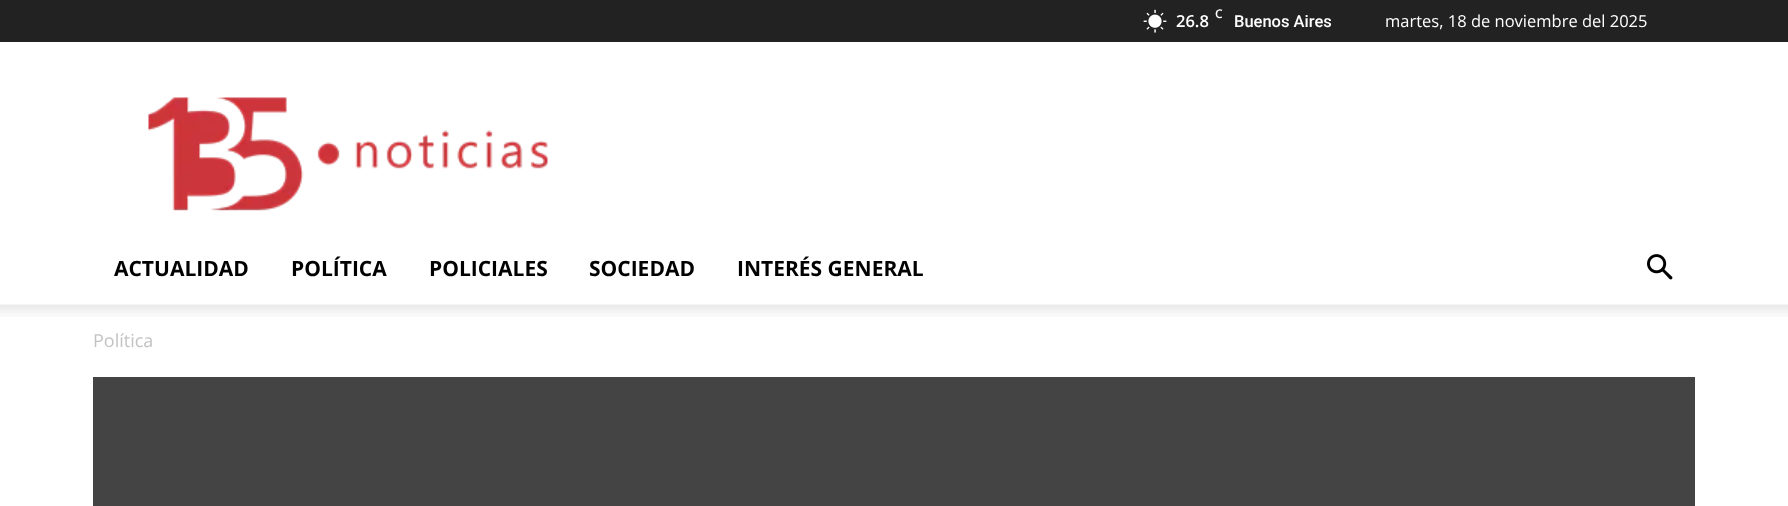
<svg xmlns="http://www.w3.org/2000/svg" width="1788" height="506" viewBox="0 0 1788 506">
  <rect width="100%" height="100%" fill="rgb(255,255,255)"/>
  <rect x="0" y="0" width="1788" height="42" fill="rgb(34,34,34)"/>
  <image x="1143" y="9" width="24" height="24" href="pic1.png"/>
  <text x="1215" y="18" font-family="Open Sans" font-size="12" font-weight="600" fill="rgb(255,255,255)">C</text>
  <text x="1176" y="27" font-family="Open Sans" font-size="16.5" font-weight="600" fill="rgb(255,255,255)">26.8</text>
  <text x="1234" y="27" font-family="Roboto" font-size="16.5" font-weight="500" fill="rgb(255,255,255)">Buenos Aires</text>
  <text x="1385" y="27" font-family="Open Sans" font-size="16.5" fill="rgb(255,255,255)">martes, 18 de noviembre del 2025</text>
  <image x="148" y="97" width="400" height="114" href="pic2.png"/>
  <g font-family="Open Sans" font-size="21" font-weight="bold" fill="rgb(0,0,0)">
    <text x="114" y="276">ACTUALIDAD</text>
    <text x="291" y="276">POLÍTICA</text>
    <text x="429" y="276">POLICIALES</text>
    <text x="589" y="276">SOCIEDAD</text>
    <text x="737" y="276">INTERÉS GENERAL</text>
  </g>
  <image x="1647" y="254" width="26" height="26" href="pic3.png"/>
  <image x="0" y="304" width="1788" height="13" href="pic4.png"/>
  <text x="93" y="347" font-family="Open Sans" font-size="18" fill="rgb(195,195,195)">Política</text>
  <rect x="93" y="377" width="1602" height="129" fill="rgb(68,68,68)"/>
</svg>
